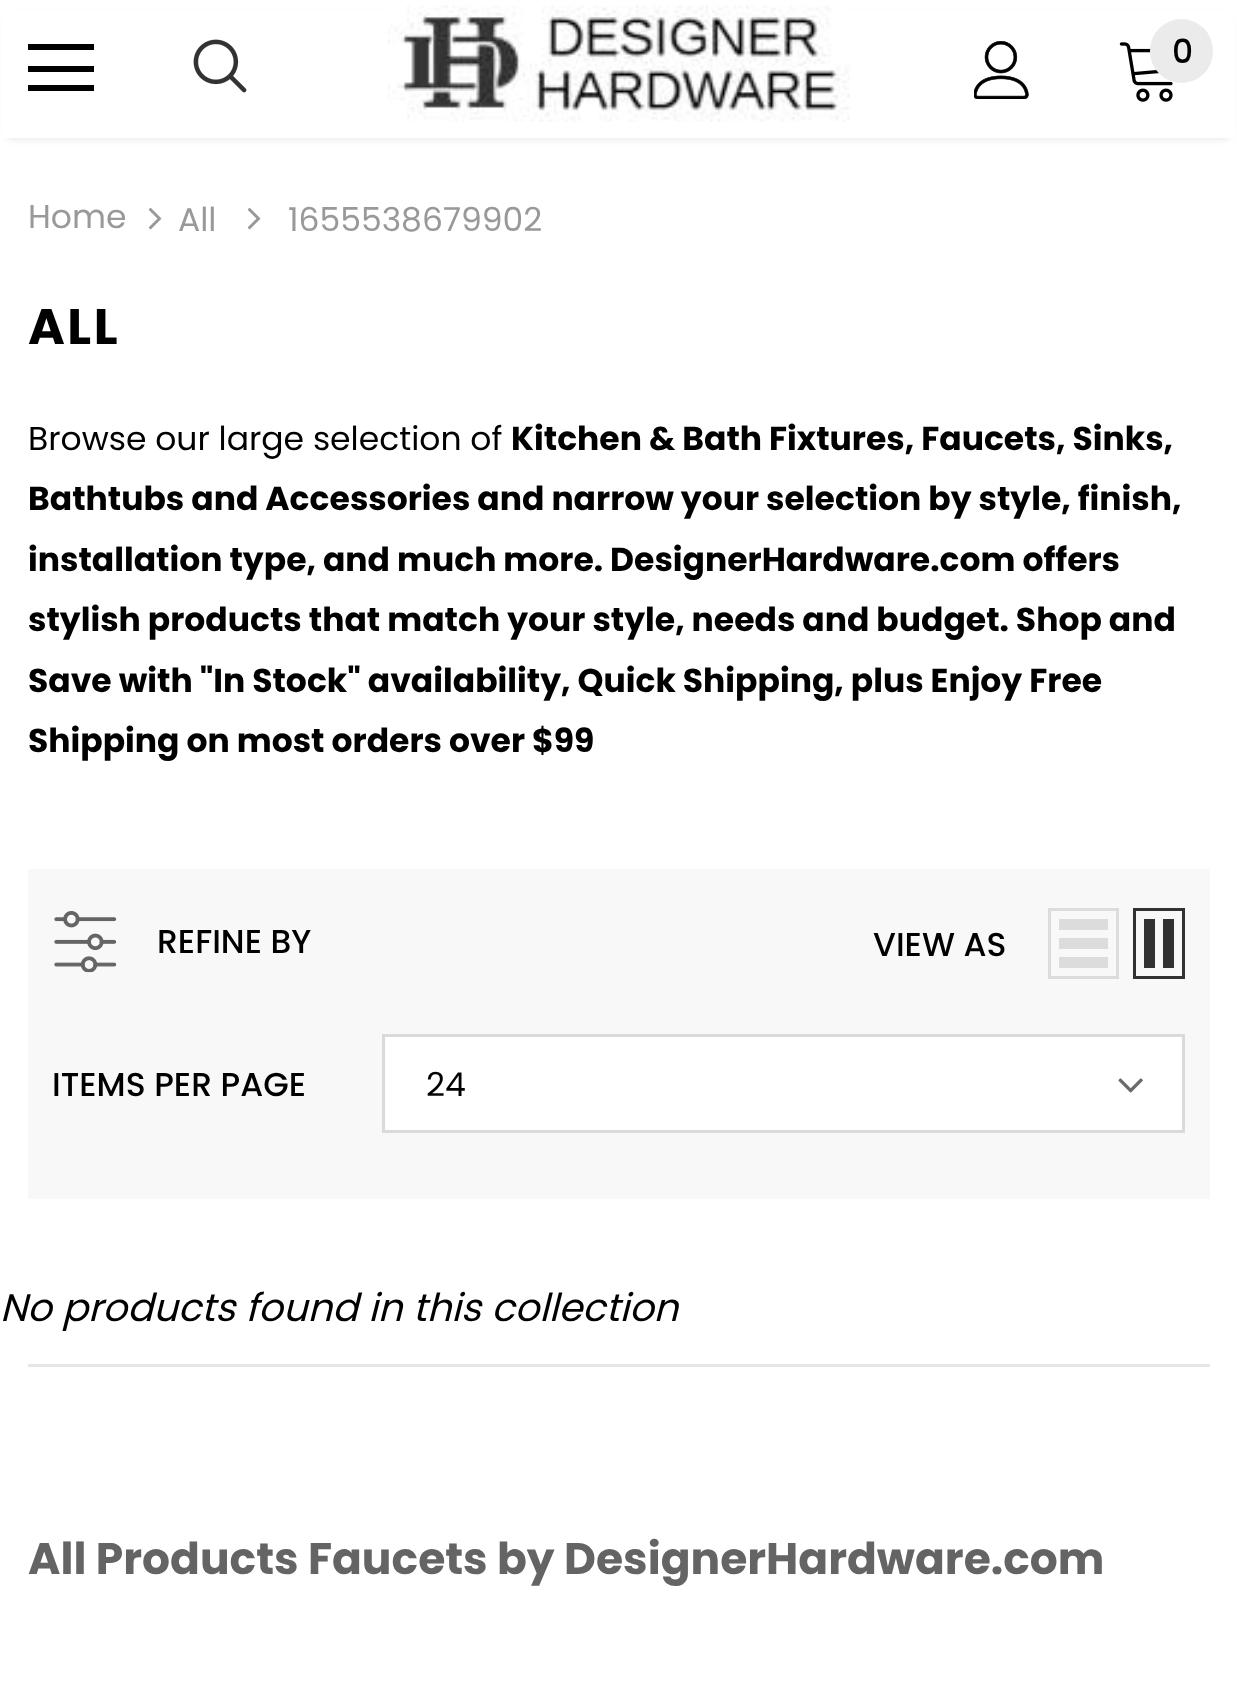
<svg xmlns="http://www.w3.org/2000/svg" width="1237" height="1697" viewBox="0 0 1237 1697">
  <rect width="100%" height="100%" fill="rgb(255,255,255)"/>
  <rect x="8" y="17" width="1221" height="121" fill="rgba(0,0,0,0.12)" filter="blur(4px)"/>
  <rect x="2" y="11" width="1233" height="127" fill="rgb(255,255,255)"/>
  <rect x="28" y="44" width="66" height="6" fill="rgb(0,0,0)"/>
  <rect x="28" y="66" width="66" height="6" fill="rgb(0,0,0)"/>
  <rect x="28" y="85" width="66" height="6" fill="rgb(0,0,0)"/>
  <image x="193" y="39" width="54" height="54" href="pic1.png"/>
  <image x="388" y="5" width="462" height="117" href="pic2.png"/>
  <image x="974" y="41" width="55" height="58" href="pic3.png"/>
  <image x="1119" y="42" width="54" height="60" href="pic4.png"/>
  <rect x="1150" y="19" width="63" height="64" rx="31.5" fill="rgb(235,235,235)"/>
  <text x="1172" y="63" font-family="Poppins" font-size="33" font-weight="500" fill="rgb(0,0,0)">0</text>
  <text x="28" y="228" font-family="Poppins" font-size="33" fill="rgb(153,153,153)">Home</text>
  <image x="148" y="208" width="14" height="22" href="pic5.png"/>
  <text x="178" y="231" font-family="Poppins" font-size="33" fill="rgb(153,153,153)">All</text>
  <image x="247" y="208" width="14" height="22" href="pic5.png"/>
  <text x="288" y="231" font-family="Poppins" font-size="33" fill="rgb(153,153,153)">1655538679902</text>
  <text x="28" y="344" font-family="Poppins" font-size="50" font-weight="bold" letter-spacing="2.5" fill="rgb(0,0,0)">ALL</text>
  <text x="28" y="450" font-family="Poppins" font-size="33" fill="rgb(0,0,0)">Browse our large selection of</text>
  <g font-family="Poppins" font-size="33" font-weight="bold" fill="rgb(0,0,0)">
    <text x="511" y="450">Kitchen &amp; Bath Fixtures, Faucets, Sinks,</text>
    <text>
      <tspan x="28" y="510">Bathtubs and Accessories and narrow your selection by style, finish,</tspan>
      <tspan x="28" y="571">installation type, and much more. DesignerHardware.com offers</tspan>
      <tspan x="28" y="631">stylish products that match your style, needs and budget. Shop and</tspan>
      <tspan x="28" y="692">Save with "In Stock" availability, Quick Shipping, plus Enjoy Free</tspan>
      <tspan x="28" y="752">Shipping on most orders over $99</tspan>
    </text>
  </g>
  <rect x="28" y="869" width="1182" height="330" fill="rgb(248,248,248)"/>
  <image x="54" y="911" width="63" height="62" href="pic6.png"/>
  <g font-family="Poppins" font-size="33" font-weight="500" fill="rgb(0,0,0)">
    <text x="157" y="953">REFINE BY</text>
    <text x="873" y="956">VIEW AS</text>
  </g>
  <rect x="1049.5" y="909.5" width="68" height="68" fill="none" stroke="rgb(220,220,220)" stroke-width="3"/>
  <rect x="1059" y="957" width="49" height="11" fill="rgb(220,220,220)"/>
  <rect x="1059" y="938" width="49" height="11" fill="rgb(220,220,220)"/>
  <rect x="1059" y="919" width="49" height="11" fill="rgb(220,220,220)"/>
  <rect x="1134.5" y="909.5" width="49" height="68" fill="none" stroke="rgb(50,50,50)" stroke-width="3"/>
  <rect x="1163" y="919" width="11" height="49" fill="rgb(50,50,50)"/>
  <rect x="1144" y="919" width="11" height="49" fill="rgb(50,50,50)"/>
  <text x="52" y="1096" font-family="Poppins" font-size="33" font-weight="500" fill="rgb(0,0,0)">ITEMS PER PAGE</text>
  <rect x="383.5" y="1035.5" width="800" height="96" fill="rgb(255,255,255)" stroke="rgb(218,218,218)" stroke-width="3"/>
  <text x="426" y="1096" font-family="Poppins" font-size="33" fill="rgb(0,0,0)">24</text>
  <image x="1118" y="1078" width="25" height="15" href="pic7.png"/>
  <text x="0" y="1321" font-family="Poppins" font-size="38.5" font-style="italic" fill="rgb(0,0,0)">No products found in this collection</text>
  <rect x="28" y="1364" width="1182" height="3" fill="rgb(230,230,230)"/>
  <text x="28" y="1574" font-family="Poppins" font-size="44" font-weight="bold" fill="rgb(100,100,100)">All Products Faucets by DesignerHardware.com</text>
</svg>
